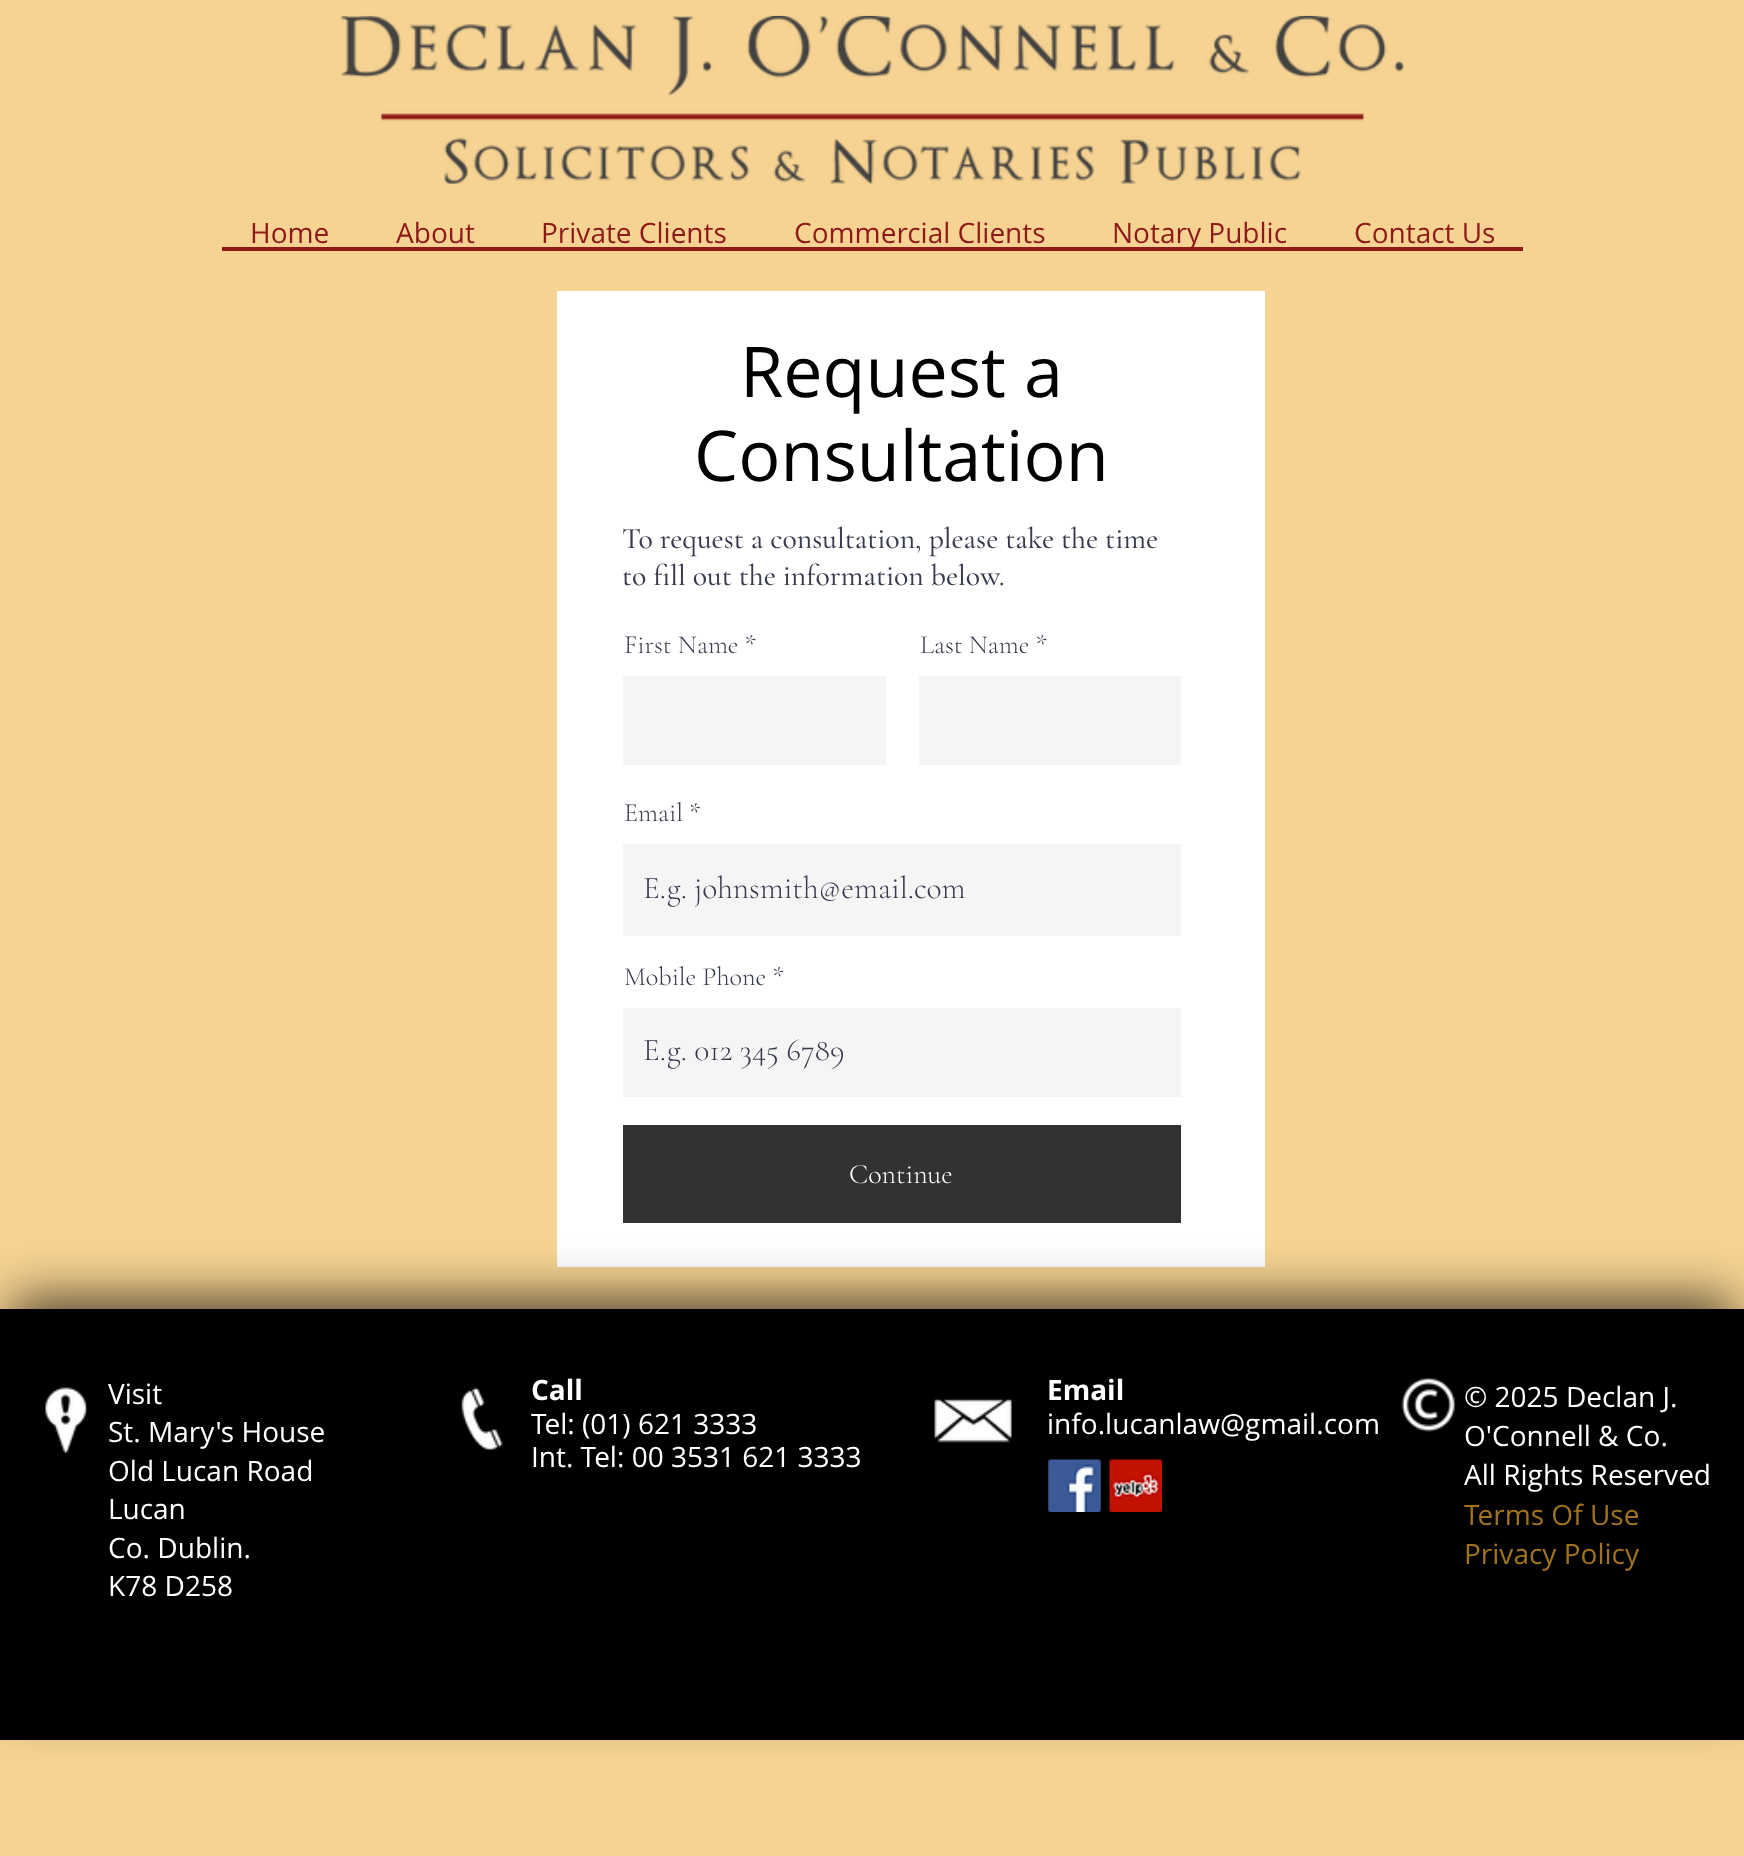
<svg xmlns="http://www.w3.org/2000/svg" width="1744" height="1856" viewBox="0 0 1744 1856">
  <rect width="100%" height="100%" fill="rgb(246,211,146)"/>
  <image x="341" y="15" width="1063" height="169" href="pic1.png"/>
  <g font-family="Open Sans" font-size="28" fill="rgb(141,25,25)">
    <text x="250" y="243">Home</text>
    <text x="396" y="243">About</text>
    <text x="541" y="243">Private Clients</text>
    <text x="794" y="243">Commercial Clients</text>
    <text x="1112" y="243">Notary Public</text>
    <text x="1354" y="243">Contact Us</text>
  </g>
  <rect x="222" y="247" width="1301" height="4" fill="rgb(141,25,25)"/>
  <rect x="557" y="291" width="708" height="976" fill="rgb(255,255,255)"/>
  <g font-family="Open Sans" font-size="70" fill="rgb(0,0,0)">
    <text x="740" y="397">Request a</text>
    <text x="694" y="481">Consultation</text>
  </g>
  <g font-family="Cormorant Garamond" font-size="29.75" font-weight="500" fill="rgb(55,59,77)">
    <text>
      <tspan x="622" y="548">To request a consultation, please take the time</tspan>
      <tspan x="622" y="585">to fill out the information below.</tspan>
    </text>
  </g>
  <text x="624" y="653" font-family="Cormorant Garamond" font-size="26.25" font-weight="300" fill="rgb(55,59,77)">First Name *</text>
  <rect x="623" y="676" width="263" height="89" fill="rgb(245,245,245)"/>
  <text x="920" y="653" font-family="Cormorant Garamond" font-size="26.25" font-weight="300" fill="rgb(55,59,77)">Last Name *</text>
  <rect x="919" y="676" width="262" height="89" fill="rgb(245,245,245)"/>
  <text x="624" y="821" font-family="Cormorant Garamond" font-size="26.25" font-weight="300" fill="rgb(55,59,77)">Email *</text>
  <rect x="623" y="844" width="558" height="92" fill="rgb(245,245,245)"/>
  <text x="643" y="898" font-family="Cormorant Garamond" font-size="31.5" font-weight="300" fill="rgb(55,59,77)">E.g. johnsmith@email.com</text>
  <text x="624" y="985" font-family="Cormorant Garamond" font-size="26.25" font-weight="300" fill="rgb(55,59,77)">Mobile Phone *</text>
  <rect x="623" y="1008" width="558" height="89" fill="rgb(245,245,245)"/>
  <text x="643" y="1060" font-family="Cormorant Garamond" font-size="31.5" font-weight="300" fill="rgb(55,59,77)">E.g. 012 345 6789</text>
  <rect x="623" y="1125" width="558" height="98" fill="rgb(50,50,50)"/>
  <text x="849" y="1183" font-family="Cormorant Garamond" font-size="28" font-weight="300" fill="rgb(255,255,255)">Continue</text>
  <rect x="12" y="1299" width="1721" height="406" fill="rgba(0,0,0,0.7)" filter="blur(25.5px)"/>
  <rect x="0" y="1309" width="1744" height="431" fill="rgb(0,0,0)"/>
  <image x="45" y="1387" width="43" height="66" href="pic2.png"/>
  <g font-family="Open Sans" font-size="28" fill="rgb(255,255,255)">
    <text>
      <tspan x="108" y="1404">Visit</tspan>
      <tspan x="108" y="1442">St. Mary's House</tspan>
      <tspan x="108" y="1481">Old Lucan Road</tspan>
      <tspan x="108" y="1519">Lucan</tspan>
      <tspan x="108" y="1558">Co. Dublin.</tspan>
      <tspan x="108" y="1596">K78 D258</tspan>
    </text>
  </g>
  <image x="461" y="1387" width="42" height="64" href="pic3.png"/>
  <text x="531" y="1400" font-family="Open Sans" font-size="28" font-weight="bold" fill="rgb(255,255,255)">Call</text>
  <g font-family="Open Sans" font-size="28" fill="rgb(255,255,255)">
    <text>
      <tspan x="531" y="1434">Tel: (01) 621 3333</tspan>
      <tspan x="531" y="1467">Int. Tel: 00 3531 621 3333</tspan>
    </text>
  </g>
  <image x="934" y="1398" width="78" height="45" href="pic4.png"/>
  <text x="1047" y="1400" font-family="Open Sans" font-size="28" font-weight="bold" fill="rgb(255,255,255)">Email</text>
  <text x="1047" y="1434" font-family="Open Sans" font-size="28" fill="rgb(255,255,255)">info.lucanlaw@gmail.com</text>
  <image x="1401" y="1377" width="55" height="55" href="pic5.png"/>
  <g font-family="Open Sans" font-size="28" fill="rgb(255,255,255)">
    <text>
      <tspan x="1464" y="1407">© 2025 Declan J.</tspan>
      <tspan x="1464" y="1446">O'Connell &amp; Co.</tspan>
      <tspan x="1464" y="1485">All Rights Reserved</tspan>
    </text>
  </g>
  <g font-family="Open Sans" font-size="28" fill="rgb(161,115,30)">
    <text>
      <tspan x="1464" y="1525">Terms Of Use</tspan>
      <tspan x="1464" y="1564">Privacy Policy</tspan>
    </text>
  </g>
  <image x="1048" y="1459" width="53" height="53" href="pic6.png"/>
  <image x="1109" y="1459" width="53" height="53" href="pic7.png"/>
</svg>
